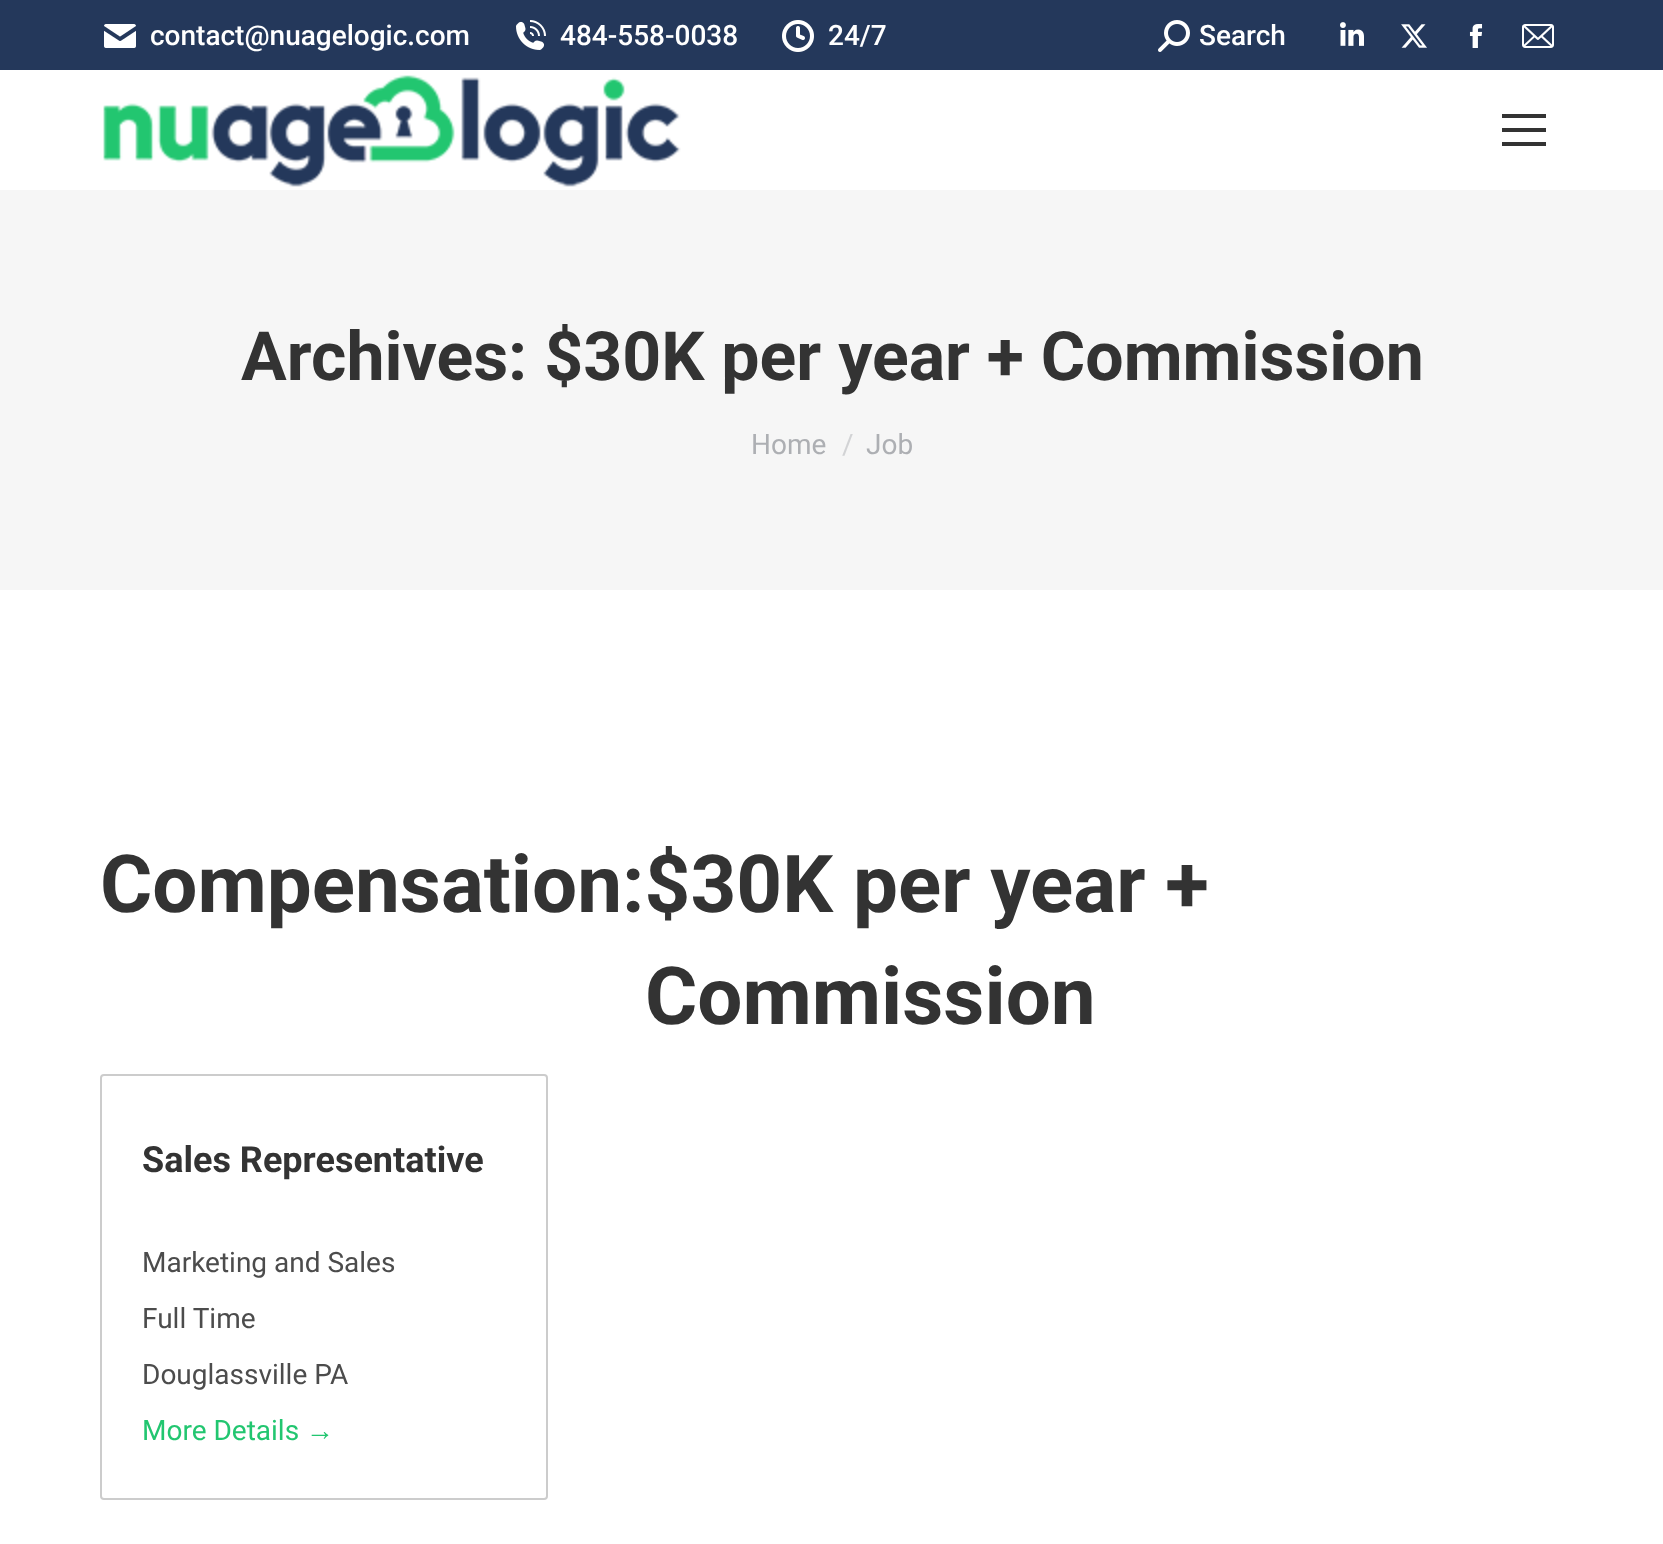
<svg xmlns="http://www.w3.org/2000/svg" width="1663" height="1544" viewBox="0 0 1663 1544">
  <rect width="100%" height="100%" fill="rgb(255,255,255)"/>
  <rect x="0" y="0" width="1663" height="70" fill="rgb(36,56,91)"/>
  <image x="104" y="24" width="32" height="24" href="pic1.png"/>
  <text x="150" y="45" font-family="Roboto" font-size="28" font-weight="500" fill="rgb(255,255,255)">contact@nuagelogic.com</text>
  <image x="516" y="20" width="30" height="30" href="pic2.png"/>
  <text x="560" y="45" font-family="Roboto" font-size="28" font-weight="500" fill="rgb(255,255,255)">484-558-0038</text>
  <image x="782" y="20" width="32" height="32" href="pic3.png"/>
  <text x="828" y="45" font-family="Roboto" font-size="28" font-weight="500" fill="rgb(255,255,255)">24/7</text>
  <image x="1158" y="20" width="32" height="32" href="pic4.png"/>
  <text x="1199" y="45" font-family="Roboto" font-size="28" font-weight="500" fill="rgb(255,255,255)">Search</text>
  <image x="1340" y="22" width="24" height="24" href="pic5.png"/>
  <image x="1401" y="24" width="26" height="24" href="pic6.png"/>
  <image x="1469" y="24" width="14" height="24" href="pic7.png"/>
  <image x="1522" y="24" width="32" height="24" href="pic8.png"/>
  <image x="103" y="75" width="578" height="112" href="pic9.png"/>
  <rect x="1502" y="114" width="44" height="4" fill="rgb(51,51,51)"/>
  <rect x="1502" y="128" width="44" height="4" fill="rgb(51,51,51)"/>
  <rect x="1502" y="142" width="44" height="4" fill="rgb(51,51,51)"/>
  <rect x="0" y="190" width="1663" height="400" fill="rgb(246,246,246)"/>
  <text x="241" y="380" font-family="Roboto" font-size="68" font-weight="bold" fill="rgb(51,51,51)">Archives: $30K per year + Commission</text>
  <text x="751" y="454" font-family="Roboto" font-size="28" fill="rgb(173,175,179)">Home</text>
  <text x="842" y="454" font-family="Roboto" font-size="28" fill="rgb(210,211,213)">/</text>
  <text x="866" y="454" font-family="Roboto" font-size="28" fill="rgb(173,175,179)">Job</text>
  <g font-family="Roboto" font-size="80" font-weight="bold" fill="rgb(51,51,51)">
    <text x="100" y="912">Compensation:$30K per year +</text>
    <text x="645" y="1024">Commission</text>
  </g>
  <rect x="101" y="1075" width="446" height="424" rx="3" fill="none" stroke="rgb(204,204,204)" stroke-width="2"/>
  <text x="142" y="1172" font-family="Roboto" font-size="36" font-weight="bold" fill="rgb(51,51,51)">Sales Representative</text>
  <g font-family="Roboto" font-size="28" fill="rgb(76,76,76)">
    <text x="142" y="1272">Marketing and Sales</text>
    <text x="142" y="1328">Full Time</text>
    <text x="142" y="1384">Douglassville PA</text>
  </g>
  <text x="142" y="1440" font-family="Roboto" font-size="28" fill="rgb(34,198,112)">More Details</text>
  <text x="306" y="1440" font-family="Liberation Sans" font-size="28" fill="rgb(34,198,112)">→</text>
</svg>
